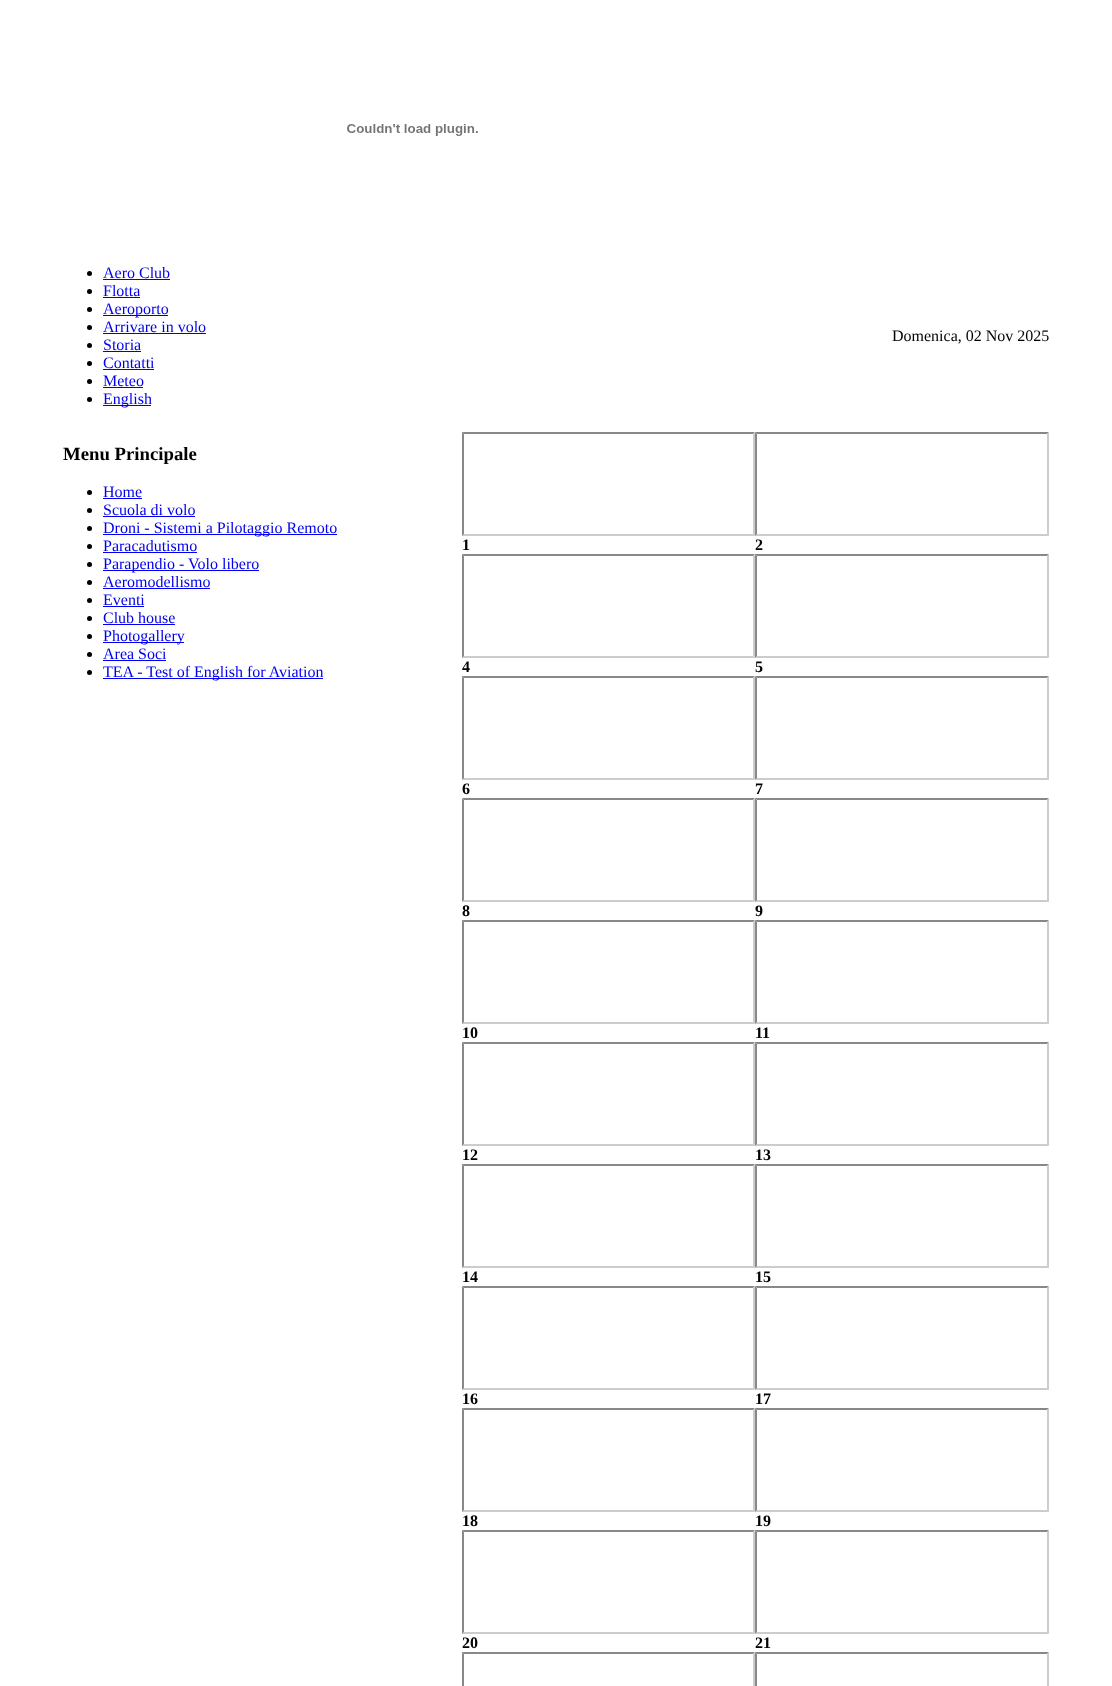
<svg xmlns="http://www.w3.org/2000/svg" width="1112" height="1686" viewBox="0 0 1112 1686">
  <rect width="100%" height="100%" fill="rgb(255,255,255)"/>
  <image x="347" y="124" width="131" height="12" href="pic1.png"/>
  <circle cx="89.5" cy="273.5" r="2.5" fill="rgb(0,0,0)"/>
  <text x="103" y="278" font-family="Liberation Serif" font-size="16" fill="rgb(0,0,238)">Aero Club</text>
  <rect x="103" y="279" width="67" height="1" fill="rgb(0,0,238)"/>
  <circle cx="89.5" cy="291.5" r="2.5" fill="rgb(0,0,0)"/>
  <text x="103" y="296" font-family="Liberation Serif" font-size="16" fill="rgb(0,0,238)">Flotta</text>
  <rect x="103" y="297" width="37" height="1" fill="rgb(0,0,238)"/>
  <circle cx="89.5" cy="309.5" r="2.5" fill="rgb(0,0,0)"/>
  <rect x="103" y="315" width="65" height="1" fill="rgb(0,0,238)"/>
  <text x="103" y="314" font-family="Liberation Serif" font-size="16" fill="rgb(0,0,238)">Aeroporto</text>
  <circle cx="89.5" cy="327.5" r="2.5" fill="rgb(0,0,0)"/>
  <text x="103" y="332" font-family="Liberation Serif" font-size="16" fill="rgb(0,0,238)">Arrivare in volo</text>
  <rect x="103" y="333" width="103" height="1" fill="rgb(0,0,238)"/>
  <circle cx="89.5" cy="345.5" r="2.5" fill="rgb(0,0,0)"/>
  <text x="103" y="350" font-family="Liberation Serif" font-size="16" fill="rgb(0,0,238)">Storia</text>
  <rect x="103" y="351" width="38" height="1" fill="rgb(0,0,238)"/>
  <circle cx="89.5" cy="363.5" r="2.5" fill="rgb(0,0,0)"/>
  <text x="103" y="368" font-family="Liberation Serif" font-size="16" fill="rgb(0,0,238)">Contatti</text>
  <rect x="103" y="369" width="51" height="1" fill="rgb(0,0,238)"/>
  <circle cx="89.5" cy="381.5" r="2.5" fill="rgb(0,0,0)"/>
  <text x="103" y="386" font-family="Liberation Serif" font-size="16" fill="rgb(0,0,238)">Meteo</text>
  <rect x="103" y="387" width="40" height="1" fill="rgb(0,0,238)"/>
  <circle cx="89.5" cy="399.5" r="2.5" fill="rgb(0,0,0)"/>
  <rect x="103" y="405" width="48" height="1" fill="rgb(0,0,238)"/>
  <text x="103" y="404" font-family="Liberation Serif" font-size="16" fill="rgb(0,0,238)">English</text>
  <text x="892" y="341" font-family="Liberation Serif" font-size="16" fill="rgb(0,0,0)">Domenica, 02 Nov 2025</text>
  <text x="63" y="460" font-family="Liberation Serif" font-size="18.75" font-weight="bold" fill="rgb(0,0,0)">Menu Principale</text>
  <circle cx="89.5" cy="492.5" r="2.5" fill="rgb(0,0,0)"/>
  <text x="103" y="497" font-family="Liberation Serif" font-size="16" fill="rgb(0,0,238)">Home</text>
  <rect x="103" y="498" width="39" height="1" fill="rgb(0,0,238)"/>
  <circle cx="89.5" cy="510.5" r="2.5" fill="rgb(0,0,0)"/>
  <text x="103" y="515" font-family="Liberation Serif" font-size="16" fill="rgb(0,0,238)">Scuola di volo</text>
  <rect x="103" y="516" width="92" height="1" fill="rgb(0,0,238)"/>
  <circle cx="89.5" cy="528.5" r="2.5" fill="rgb(0,0,0)"/>
  <rect x="103" y="534" width="234" height="1" fill="rgb(0,0,238)"/>
  <text x="103" y="533" font-family="Liberation Serif" font-size="16" fill="rgb(0,0,238)">Droni - Sistemi a Pilotaggio Remoto</text>
  <circle cx="89.5" cy="546.5" r="2.5" fill="rgb(0,0,0)"/>
  <text x="103" y="551" font-family="Liberation Serif" font-size="16" fill="rgb(0,0,238)">Paracadutismo</text>
  <rect x="103" y="552" width="94" height="1" fill="rgb(0,0,238)"/>
  <circle cx="89.5" cy="564.5" r="2.5" fill="rgb(0,0,0)"/>
  <rect x="103" y="570" width="156" height="1" fill="rgb(0,0,238)"/>
  <text x="103" y="569" font-family="Liberation Serif" font-size="16" fill="rgb(0,0,238)">Parapendio - Volo libero</text>
  <circle cx="89.5" cy="582.5" r="2.5" fill="rgb(0,0,0)"/>
  <text x="103" y="587" font-family="Liberation Serif" font-size="16" fill="rgb(0,0,238)">Aeromodellismo</text>
  <rect x="103" y="588" width="107" height="1" fill="rgb(0,0,238)"/>
  <circle cx="89.5" cy="600.5" r="2.5" fill="rgb(0,0,0)"/>
  <text x="103" y="605" font-family="Liberation Serif" font-size="16" fill="rgb(0,0,238)">Eventi</text>
  <rect x="103" y="606" width="41" height="1" fill="rgb(0,0,238)"/>
  <circle cx="89.5" cy="618.5" r="2.5" fill="rgb(0,0,0)"/>
  <text x="103" y="623" font-family="Liberation Serif" font-size="16" fill="rgb(0,0,238)">Club house</text>
  <rect x="103" y="624" width="72" height="1" fill="rgb(0,0,238)"/>
  <circle cx="89.5" cy="636.5" r="2.5" fill="rgb(0,0,0)"/>
  <rect x="103" y="642" width="81" height="1" fill="rgb(0,0,238)"/>
  <text x="103" y="641" font-family="Liberation Serif" font-size="16" fill="rgb(0,0,238)">Photogallery</text>
  <circle cx="89.5" cy="654.5" r="2.5" fill="rgb(0,0,0)"/>
  <text x="103" y="659" font-family="Liberation Serif" font-size="16" fill="rgb(0,0,238)">Area Soci</text>
  <rect x="103" y="660" width="63" height="1" fill="rgb(0,0,238)"/>
  <circle cx="89.5" cy="672.5" r="2.5" fill="rgb(0,0,0)"/>
  <rect x="103" y="678" width="220" height="1" fill="rgb(0,0,238)"/>
  <text x="103" y="677" font-family="Liberation Serif" font-size="16" fill="rgb(0,0,238)">TEA - Test of English for Aviation</text>
  <path d="M462 432H755L753 434H464Z" fill="rgb(136,136,136)"/>
  <path d="M755 432V536L753 534V434Z" fill="rgb(204,204,204)"/>
  <path d="M755 536H462L464 534H753Z" fill="rgb(204,204,204)"/>
  <path d="M462 536V432L464 434V534Z" fill="rgb(136,136,136)"/>
  <text x="462" y="550" font-family="Liberation Serif" font-size="16" font-weight="bold" fill="rgb(0,0,0)">1</text>
  <path d="M755 432H1049L1047 434H757Z" fill="rgb(136,136,136)"/>
  <path d="M1049 432V536L1047 534V434Z" fill="rgb(204,204,204)"/>
  <path d="M1049 536H755L757 534H1047Z" fill="rgb(204,204,204)"/>
  <path d="M755 536V432L757 434V534Z" fill="rgb(136,136,136)"/>
  <text x="755" y="550" font-family="Liberation Serif" font-size="16" font-weight="bold" fill="rgb(0,0,0)">2</text>
  <path d="M462 554H755L753 556H464Z" fill="rgb(136,136,136)"/>
  <path d="M755 554V658L753 656V556Z" fill="rgb(204,204,204)"/>
  <path d="M755 658H462L464 656H753Z" fill="rgb(204,204,204)"/>
  <path d="M462 658V554L464 556V656Z" fill="rgb(136,136,136)"/>
  <text x="462" y="672" font-family="Liberation Serif" font-size="16" font-weight="bold" fill="rgb(0,0,0)">4</text>
  <path d="M755 554H1049L1047 556H757Z" fill="rgb(136,136,136)"/>
  <path d="M1049 554V658L1047 656V556Z" fill="rgb(204,204,204)"/>
  <path d="M1049 658H755L757 656H1047Z" fill="rgb(204,204,204)"/>
  <path d="M755 658V554L757 556V656Z" fill="rgb(136,136,136)"/>
  <text x="755" y="672" font-family="Liberation Serif" font-size="16" font-weight="bold" fill="rgb(0,0,0)">5</text>
  <path d="M462 676H755L753 678H464Z" fill="rgb(136,136,136)"/>
  <path d="M755 676V780L753 778V678Z" fill="rgb(204,204,204)"/>
  <path d="M755 780H462L464 778H753Z" fill="rgb(204,204,204)"/>
  <path d="M462 780V676L464 678V778Z" fill="rgb(136,136,136)"/>
  <text x="462" y="794" font-family="Liberation Serif" font-size="16" font-weight="bold" fill="rgb(0,0,0)">6</text>
  <path d="M755 676H1049L1047 678H757Z" fill="rgb(136,136,136)"/>
  <path d="M1049 676V780L1047 778V678Z" fill="rgb(204,204,204)"/>
  <path d="M1049 780H755L757 778H1047Z" fill="rgb(204,204,204)"/>
  <path d="M755 780V676L757 678V778Z" fill="rgb(136,136,136)"/>
  <text x="755" y="794" font-family="Liberation Serif" font-size="16" font-weight="bold" fill="rgb(0,0,0)">7</text>
  <path d="M462 798H755L753 800H464Z" fill="rgb(136,136,136)"/>
  <path d="M755 798V902L753 900V800Z" fill="rgb(204,204,204)"/>
  <path d="M755 902H462L464 900H753Z" fill="rgb(204,204,204)"/>
  <path d="M462 902V798L464 800V900Z" fill="rgb(136,136,136)"/>
  <text x="462" y="916" font-family="Liberation Serif" font-size="16" font-weight="bold" fill="rgb(0,0,0)">8</text>
  <path d="M755 798H1049L1047 800H757Z" fill="rgb(136,136,136)"/>
  <path d="M1049 798V902L1047 900V800Z" fill="rgb(204,204,204)"/>
  <path d="M1049 902H755L757 900H1047Z" fill="rgb(204,204,204)"/>
  <path d="M755 902V798L757 800V900Z" fill="rgb(136,136,136)"/>
  <text x="755" y="916" font-family="Liberation Serif" font-size="16" font-weight="bold" fill="rgb(0,0,0)">9</text>
  <path d="M462 920H755L753 922H464Z" fill="rgb(136,136,136)"/>
  <path d="M755 920V1024L753 1022V922Z" fill="rgb(204,204,204)"/>
  <path d="M755 1024H462L464 1022H753Z" fill="rgb(204,204,204)"/>
  <path d="M462 1024V920L464 922V1022Z" fill="rgb(136,136,136)"/>
  <text x="462" y="1038" font-family="Liberation Serif" font-size="16" font-weight="bold" fill="rgb(0,0,0)">10</text>
  <path d="M755 920H1049L1047 922H757Z" fill="rgb(136,136,136)"/>
  <path d="M1049 920V1024L1047 1022V922Z" fill="rgb(204,204,204)"/>
  <path d="M1049 1024H755L757 1022H1047Z" fill="rgb(204,204,204)"/>
  <path d="M755 1024V920L757 922V1022Z" fill="rgb(136,136,136)"/>
  <text x="755" y="1038" font-family="Liberation Serif" font-size="16" font-weight="bold" fill="rgb(0,0,0)">11</text>
  <path d="M462 1042H755L753 1044H464Z" fill="rgb(136,136,136)"/>
  <path d="M755 1042V1146L753 1144V1044Z" fill="rgb(204,204,204)"/>
  <path d="M755 1146H462L464 1144H753Z" fill="rgb(204,204,204)"/>
  <path d="M462 1146V1042L464 1044V1144Z" fill="rgb(136,136,136)"/>
  <text x="462" y="1160" font-family="Liberation Serif" font-size="16" font-weight="bold" fill="rgb(0,0,0)">12</text>
  <path d="M755 1042H1049L1047 1044H757Z" fill="rgb(136,136,136)"/>
  <path d="M1049 1042V1146L1047 1144V1044Z" fill="rgb(204,204,204)"/>
  <path d="M1049 1146H755L757 1144H1047Z" fill="rgb(204,204,204)"/>
  <path d="M755 1146V1042L757 1044V1144Z" fill="rgb(136,136,136)"/>
  <text x="755" y="1160" font-family="Liberation Serif" font-size="16" font-weight="bold" fill="rgb(0,0,0)">13</text>
  <path d="M462 1164H755L753 1166H464Z" fill="rgb(136,136,136)"/>
  <path d="M755 1164V1268L753 1266V1166Z" fill="rgb(204,204,204)"/>
  <path d="M755 1268H462L464 1266H753Z" fill="rgb(204,204,204)"/>
  <path d="M462 1268V1164L464 1166V1266Z" fill="rgb(136,136,136)"/>
  <text x="462" y="1282" font-family="Liberation Serif" font-size="16" font-weight="bold" fill="rgb(0,0,0)">14</text>
  <path d="M755 1164H1049L1047 1166H757Z" fill="rgb(136,136,136)"/>
  <path d="M1049 1164V1268L1047 1266V1166Z" fill="rgb(204,204,204)"/>
  <path d="M1049 1268H755L757 1266H1047Z" fill="rgb(204,204,204)"/>
  <path d="M755 1268V1164L757 1166V1266Z" fill="rgb(136,136,136)"/>
  <text x="755" y="1282" font-family="Liberation Serif" font-size="16" font-weight="bold" fill="rgb(0,0,0)">15</text>
  <path d="M462 1286H755L753 1288H464Z" fill="rgb(136,136,136)"/>
  <path d="M755 1286V1390L753 1388V1288Z" fill="rgb(204,204,204)"/>
  <path d="M755 1390H462L464 1388H753Z" fill="rgb(204,204,204)"/>
  <path d="M462 1390V1286L464 1288V1388Z" fill="rgb(136,136,136)"/>
  <text x="462" y="1404" font-family="Liberation Serif" font-size="16" font-weight="bold" fill="rgb(0,0,0)">16</text>
  <path d="M755 1286H1049L1047 1288H757Z" fill="rgb(136,136,136)"/>
  <path d="M1049 1286V1390L1047 1388V1288Z" fill="rgb(204,204,204)"/>
  <path d="M1049 1390H755L757 1388H1047Z" fill="rgb(204,204,204)"/>
  <path d="M755 1390V1286L757 1288V1388Z" fill="rgb(136,136,136)"/>
  <text x="755" y="1404" font-family="Liberation Serif" font-size="16" font-weight="bold" fill="rgb(0,0,0)">17</text>
  <path d="M462 1408H755L753 1410H464Z" fill="rgb(136,136,136)"/>
  <path d="M755 1408V1512L753 1510V1410Z" fill="rgb(204,204,204)"/>
  <path d="M755 1512H462L464 1510H753Z" fill="rgb(204,204,204)"/>
  <path d="M462 1512V1408L464 1410V1510Z" fill="rgb(136,136,136)"/>
  <text x="462" y="1526" font-family="Liberation Serif" font-size="16" font-weight="bold" fill="rgb(0,0,0)">18</text>
  <path d="M755 1408H1049L1047 1410H757Z" fill="rgb(136,136,136)"/>
  <path d="M1049 1408V1512L1047 1510V1410Z" fill="rgb(204,204,204)"/>
  <path d="M1049 1512H755L757 1510H1047Z" fill="rgb(204,204,204)"/>
  <path d="M755 1512V1408L757 1410V1510Z" fill="rgb(136,136,136)"/>
  <text x="755" y="1526" font-family="Liberation Serif" font-size="16" font-weight="bold" fill="rgb(0,0,0)">19</text>
  <path d="M462 1530H755L753 1532H464Z" fill="rgb(136,136,136)"/>
  <path d="M755 1530V1634L753 1632V1532Z" fill="rgb(204,204,204)"/>
  <path d="M755 1634H462L464 1632H753Z" fill="rgb(204,204,204)"/>
  <path d="M462 1634V1530L464 1532V1632Z" fill="rgb(136,136,136)"/>
  <text x="462" y="1648" font-family="Liberation Serif" font-size="16" font-weight="bold" fill="rgb(0,0,0)">20</text>
  <path d="M755 1530H1049L1047 1532H757Z" fill="rgb(136,136,136)"/>
  <path d="M1049 1530V1634L1047 1632V1532Z" fill="rgb(204,204,204)"/>
  <path d="M1049 1634H755L757 1632H1047Z" fill="rgb(204,204,204)"/>
  <path d="M755 1634V1530L757 1532V1632Z" fill="rgb(136,136,136)"/>
  <text x="755" y="1648" font-family="Liberation Serif" font-size="16" font-weight="bold" fill="rgb(0,0,0)">21</text>
  <path d="M462 1652H755L753 1654H464Z" fill="rgb(136,136,136)"/>
  <path d="M755 1652V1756L753 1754V1654Z" fill="rgb(204,204,204)"/>
  <path d="M462 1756V1652L464 1654V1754Z" fill="rgb(136,136,136)"/>
  <path d="M755 1652H1049L1047 1654H757Z" fill="rgb(136,136,136)"/>
  <path d="M1049 1652V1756L1047 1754V1654Z" fill="rgb(204,204,204)"/>
  <path d="M755 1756V1652L757 1654V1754Z" fill="rgb(136,136,136)"/>
</svg>
